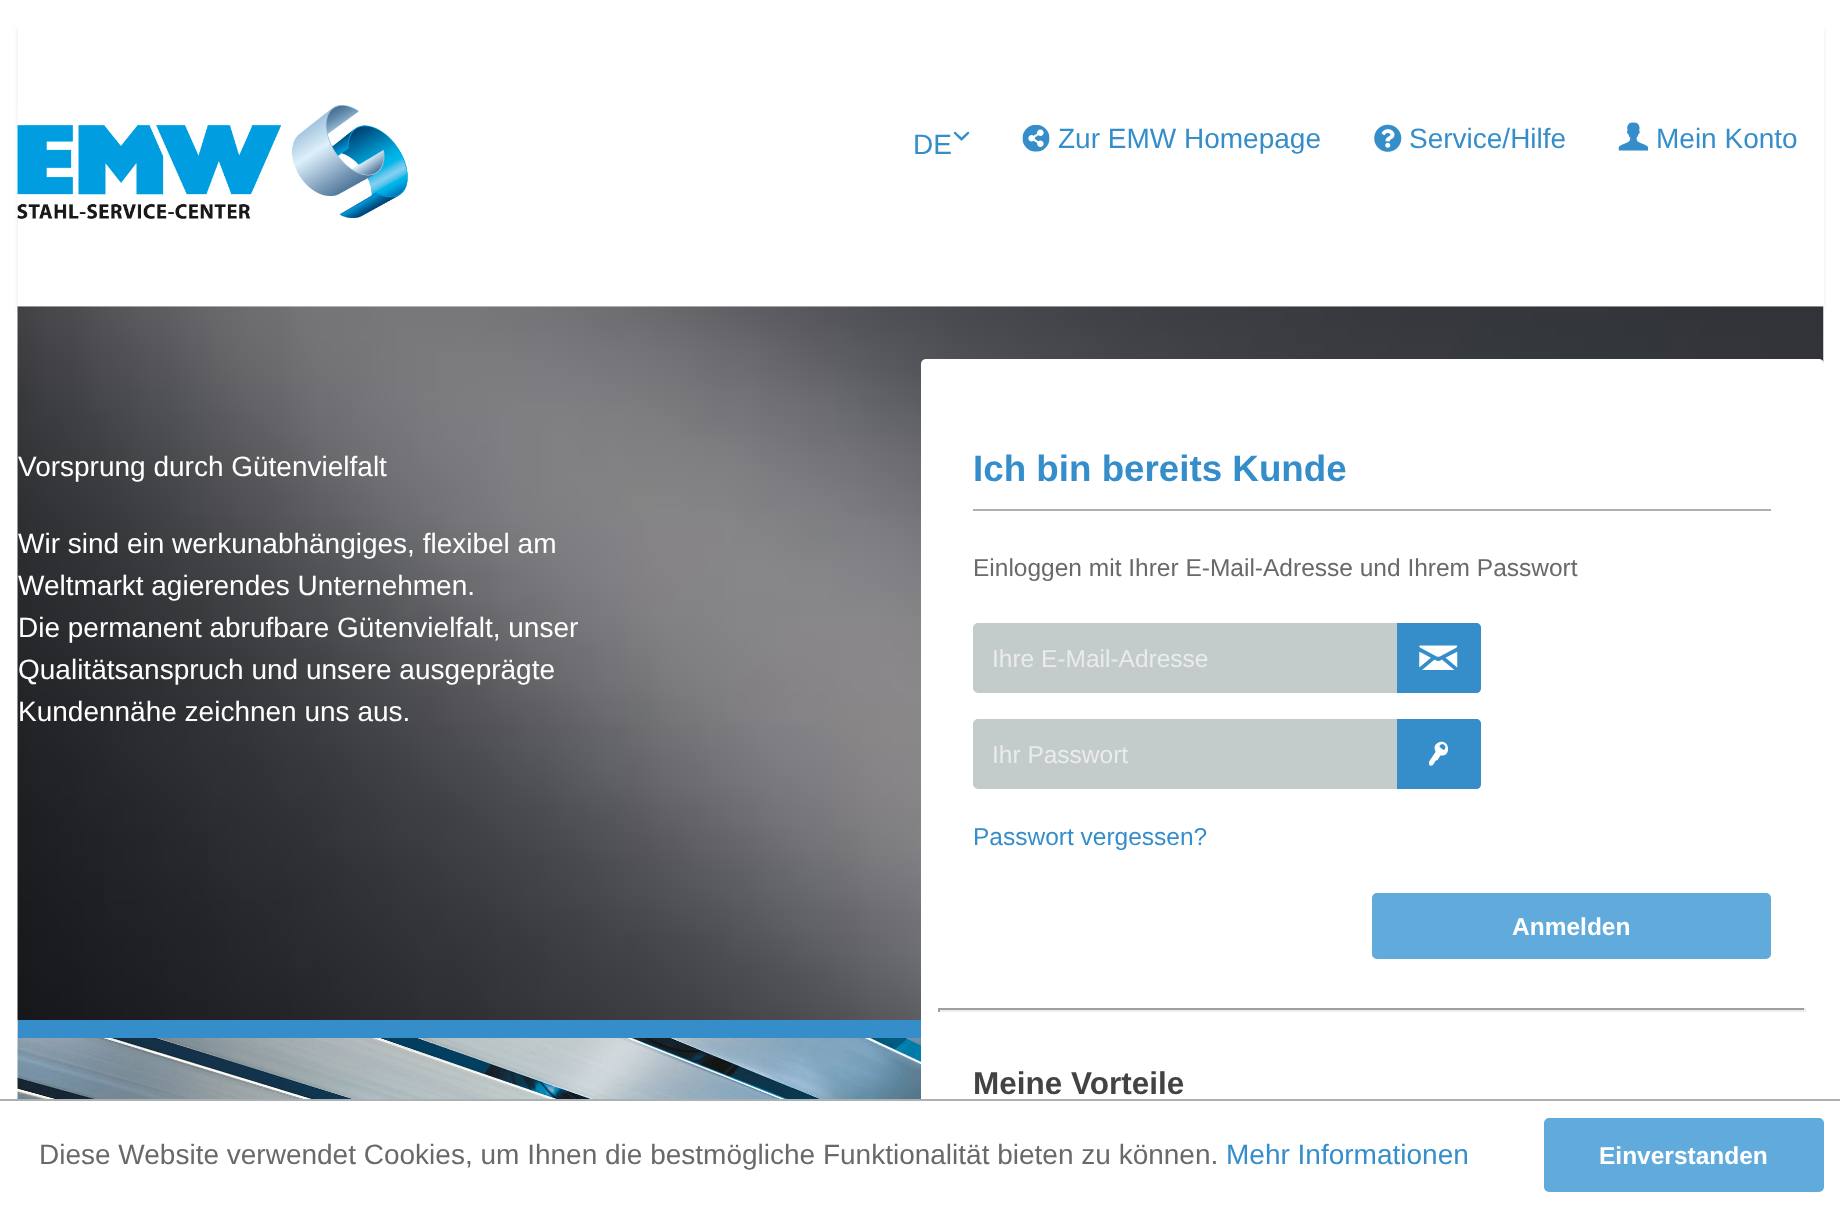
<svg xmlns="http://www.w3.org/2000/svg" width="1840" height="1208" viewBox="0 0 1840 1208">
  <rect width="100%" height="100%" fill="rgb(255,255,255)"/>
  <rect x="21" y="28" width="1799" height="282" fill="rgba(0,0,0,0.3)" filter="blur(3.5px)"/>
  <rect x="18" y="22" width="1806" height="294" fill="rgb(255,255,255)"/>
  <image x="17" y="105" width="391" height="114" href="pic1.png"/>
  <text x="913" y="154" font-family="Liberation Sans" font-size="28" fill="rgb(53,142,202)">DE</text>
  <image x="953" y="131" width="17" height="10" href="pic2.png"/>
  <image x="1022" y="125" width="28" height="27" href="pic3.png"/>
  <text x="1058" y="148" font-family="Liberation Sans" font-size="28" fill="rgb(53,142,202)">Zur EMW Homepage</text>
  <image x="1374" y="124" width="28" height="28" href="pic4.png"/>
  <text x="1409" y="148" font-family="Liberation Sans" font-size="28" fill="rgb(53,142,202)">Service/Hilfe</text>
  <image x="1618" y="122" width="30" height="29" href="pic5.png"/>
  <text x="1656" y="148" font-family="Liberation Sans" font-size="28" fill="rgb(53,142,202)">Mein Konto</text>
  <image x="17" y="306" width="1807" height="715" href="pic6.png"/>
  <g font-family="Liberation Sans" font-size="28" fill="rgb(255,255,255)">
    <text x="18" y="476">Vorsprung durch Gütenvielfalt</text>
    <text>
      <tspan x="18" y="553">Wir sind ein werkunabhängiges, flexibel am</tspan>
      <tspan x="18" y="595">Weltmarkt agierendes Unternehmen.</tspan>
      <tspan x="18" y="637">Die permanent abrufbare Gütenvielfalt, unser</tspan>
      <tspan x="18" y="679">Qualitätsanspruch und unsere ausgeprägte</tspan>
      <tspan x="18" y="721">Kundennähe zeichnen uns aus.</tspan>
    </text>
  </g>
  <rect x="921" y="359" width="903" height="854" rx="5" fill="rgb(255,255,255)"/>
  <rect x="973" y="509" width="798" height="2" fill="rgb(171,176,179)"/>
  <text x="973" y="481" font-family="Liberation Sans" font-size="36.75" font-weight="bold" fill="rgb(53,142,202)">Ich bin bereits Kunde</text>
  <text x="973" y="576" font-family="Liberation Sans" font-size="24.5" fill="rgb(105,105,105)">Einloggen mit Ihrer E-Mail-Adresse und Ihrem Passwort</text>
  <rect x="974" y="624" width="506" height="68" rx="4" fill="rgb(195,203,203)" stroke="rgb(195,203,203)" stroke-width="2"/>
  <text x="992" y="667" font-family="Liberation Sans" font-size="24.5" fill="rgb(235,235,235)">Ihre E-Mail-Adresse</text>
  <path d="M1397 623H1476C1479 623 1481 625 1481 628V688C1481 691 1479 693 1476 693H1397Z" fill="rgb(53,142,202)"/>
  <image x="1419" y="645" width="39" height="25" href="pic7.png"/>
  <rect x="974" y="720" width="506" height="68" rx="4" fill="rgb(195,203,203)" stroke="rgb(195,203,203)" stroke-width="2"/>
  <text x="992" y="763" font-family="Liberation Sans" font-size="24.5" fill="rgb(235,235,235)">Ihr Passwort</text>
  <path d="M1397 719H1476C1479 719 1481 721 1481 724V784C1481 787 1479 789 1476 789H1397Z" fill="rgb(53,142,202)"/>
  <image x="1429" y="741" width="20" height="25" href="pic8.png"/>
  <text x="973" y="845" font-family="Liberation Sans" font-size="24.5" fill="rgb(53,142,202)">Passwort vergessen?</text>
  <rect x="1372" y="893" width="399" height="66" rx="5" fill="rgb(97,170,220)"/>
  <text x="1512" y="935" font-family="Liberation Sans" font-size="24.5" font-weight="bold" fill="rgb(255,255,255)">Anmelden</text>
  <rect x="938" y="1008" width="868" height="2" fill="rgb(159,159,159)"/>
  <rect x="1804" y="1008" width="2" height="4" fill="rgb(238,238,238)"/>
  <rect x="938" y="1010" width="868" height="2" fill="rgb(238,238,238)"/>
  <rect x="938" y="1008" width="2" height="4" fill="rgb(159,159,159)"/>
  <text x="973" y="1094" font-family="Liberation Sans" font-size="31.5" font-weight="bold" fill="rgb(67,67,67)">Meine Vorteile</text>
  <image x="17" y="1020" width="904" height="79" href="pic9.png"/>
  <rect x="18" y="1020" width="903" height="18" fill="rgb(53,142,202)"/>
  <rect x="0" y="1099" width="1840" height="2" fill="rgb(171,176,179)"/>
  <text x="39" y="1164" font-family="Liberation Sans" font-size="28" fill="rgb(105,105,105)">Diese Website verwendet Cookies, um Ihnen die bestmögliche Funktionalität bieten zu können.</text>
  <text x="1226" y="1164" font-family="Liberation Sans" font-size="28" fill="rgb(53,142,202)">Mehr Informationen</text>
  <rect x="1544" y="1118" width="280" height="74" rx="5" fill="rgb(97,170,220)"/>
  <text x="1599" y="1164" font-family="Liberation Sans" font-size="24.5" font-weight="bold" fill="rgb(255,255,255)">Einverstanden</text>
</svg>
